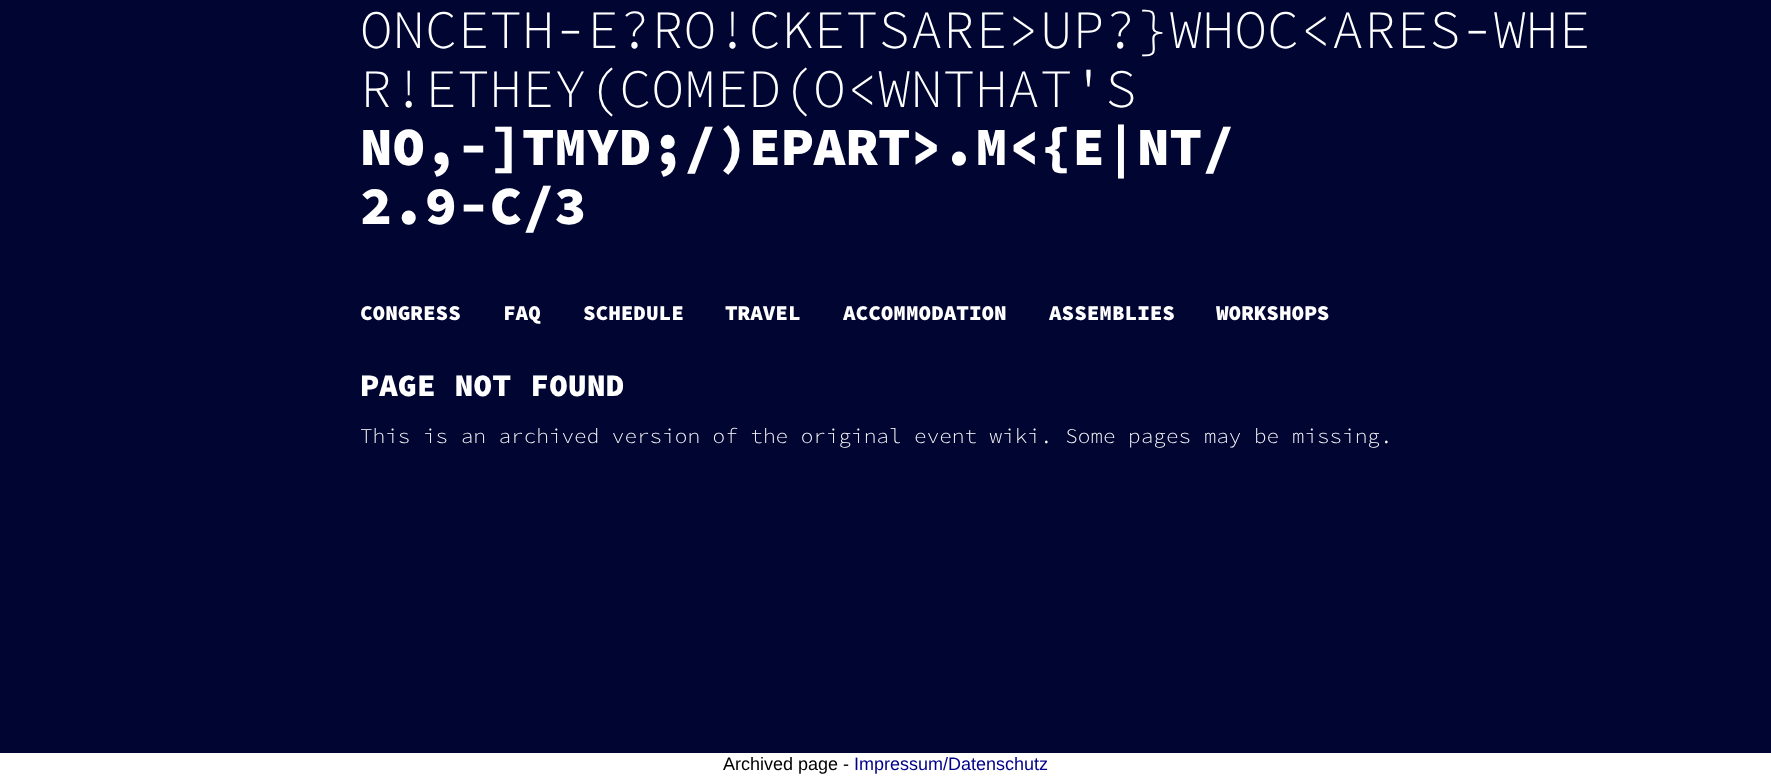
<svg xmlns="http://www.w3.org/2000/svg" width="1771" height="777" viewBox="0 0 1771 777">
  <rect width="100%" height="100%" fill="rgb(0,5,50)"/>
  <g font-family="Source Code Pro" font-size="54" font-weight="300" fill="rgb(255,255,255)">
    <text x="360" y="48">ONCETH-E?RO!CKETSARE&gt;UP?}W</text>
    <text x="1202" y="48">HOC&lt;ARES-WHE</text>
    <text x="360" y="107">R!ETHEY(COMED(O&lt;WNTHAT'S</text>
  </g>
  <g font-family="Source Code Pro" font-size="54" font-weight="900" fill="rgb(255,255,255)">
    <text x="360" y="165">NO,-]TMYD;/)EPART&gt;.M&lt;{E|NT</text>
    <text x="1202" y="165">/</text>
    <text x="360" y="224">2.9-C/3</text>
  </g>
  <g font-family="Source Code Pro" font-size="21" font-weight="900" fill="rgb(255,255,255)">
    <text x="360" y="320">CONGRESS</text>
    <text x="503" y="320">FAQ</text>
    <text x="583" y="320">SCHEDULE</text>
    <text x="725" y="320">TRAVEL</text>
    <text x="843" y="320">ACCOMMODATION</text>
    <text x="1049" y="320">ASSEMBLIES</text>
    <text x="1216" y="320">WORKSHOPS</text>
  </g>
  <text x="360" y="396" font-family="Source Code Pro" font-size="31.5" font-weight="900" fill="rgb(255,255,255)">PAGE NOT FOUND</text>
  <text x="360" y="443" font-family="Source Code Pro" font-size="21" font-weight="300" fill="rgb(255,255,255)">This is an archived version of the original event wiki. Some pages may be missing.</text>
  <rect x="0" y="753" width="1771" height="24" fill="rgb(255,255,255)"/>
  <text x="723" y="770" font-family="Liberation Sans" font-size="18" fill="rgb(0,0,0)">Archived page -</text>
  <text x="854" y="770" font-family="Liberation Sans" font-size="18" fill="rgb(0,0,139)">Impressum/Datenschutz</text>
</svg>
